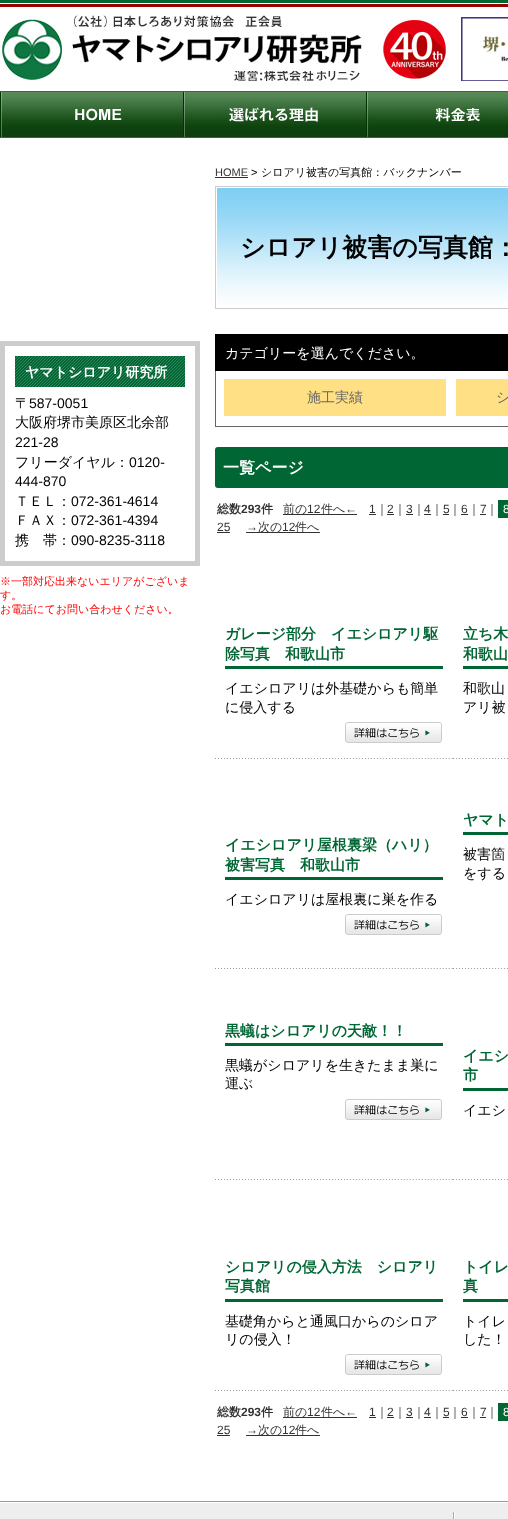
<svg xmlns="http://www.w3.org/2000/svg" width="508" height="1519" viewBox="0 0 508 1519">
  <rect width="100%" height="100%" fill="rgb(255,255,255)"/>
  <image x="0" y="0" width="508" height="7" href="pic1.png"/>
  <image x="0" y="15" width="448" height="72" href="pic2.png"/>
  <image x="461" y="17" width="47" height="64" href="pic3.png"/>
  <image x="128" y="91" width="380" height="47" href="pic4.png"/>
  <image x="0" y="91" width="128" height="47" href="pic5.png"/>
  <image x="183" y="91" width="136" height="47" href="pic6.png"/>
  <image x="366" y="91" width="120" height="47" href="pic7.png"/>
  <rect x="2.5" y="343.5" width="195" height="220" fill="none" stroke="rgb(204,204,204)" stroke-width="5"/>
  <image x="15" y="356" width="170" height="31" href="pic8.png"/>
  <text x="25" y="377" font-family="WenQuanYi Zen Hei" font-size="14" font-weight="bold" fill="rgb(255,255,255)">ヤマトシロアリ研究所</text>
  <text x="15" y="408" font-family="WenQuanYi Zen Hei" font-size="14" font-weight="500" fill="rgb(0,0,0)">〒</text>
  <text x="29" y="408" font-family="Liberation Sans" font-size="14" fill="rgb(0,0,0)">587-0051</text>
  <text x="15" y="427" font-family="WenQuanYi Zen Hei" font-size="14" font-weight="500" fill="rgb(0,0,0)">大阪府堺市美原区北余部</text>
  <text x="15" y="447" font-family="Liberation Sans" font-size="14" fill="rgb(0,0,0)">221-28</text>
  <text x="15" y="467" font-family="WenQuanYi Zen Hei" font-size="14" font-weight="500" fill="rgb(0,0,0)">フリーダイヤル：</text>
  <g font-family="Liberation Sans" font-size="14" fill="rgb(0,0,0)">
    <text x="129" y="467">0120-</text>
    <text x="15" y="486">444-870</text>
  </g>
  <text x="15" y="506" font-family="WenQuanYi Zen Hei" font-size="14" font-weight="500" fill="rgb(0,0,0)">ＴＥＬ：</text>
  <text x="71" y="506" font-family="Liberation Sans" font-size="14" fill="rgb(0,0,0)">072-361-4614</text>
  <text x="15" y="525" font-family="WenQuanYi Zen Hei" font-size="14" font-weight="500" fill="rgb(0,0,0)">ＦＡＸ：</text>
  <text x="71" y="525" font-family="Liberation Sans" font-size="14" fill="rgb(0,0,0)">072-361-4394</text>
  <text x="15" y="545" font-family="WenQuanYi Zen Hei" font-size="14" font-weight="500" fill="rgb(0,0,0)">携　帯：</text>
  <text x="71" y="545" font-family="Liberation Sans" font-size="14" fill="rgb(0,0,0)">090-8235-3118</text>
  <g font-family="WenQuanYi Zen Hei" font-size="11" font-weight="500" fill="rgb(255,0,0)">
    <text>
      <tspan x="0" y="585">※一部対応出来ないエリアがございま</tspan>
      <tspan x="0" y="599">す。</tspan>
      <tspan x="0" y="613">お電話にてお問い合わせください。</tspan>
    </text>
  </g>
  <text x="215" y="176" font-family="Liberation Sans" font-size="11" fill="rgb(51,51,51)">HOME</text>
  <rect x="215" y="177" width="33" height="1" fill="rgb(51,51,51)"/>
  <text x="251" y="176" font-family="Liberation Sans" font-size="11" fill="rgb(0,0,0)">&gt;</text>
  <text x="261" y="176" font-family="WenQuanYi Zen Hei" font-size="11" font-weight="500" fill="rgb(0,0,0)">シロアリ被害の写真館：バックナンバー</text>
  <image x="215" y="186" width="293" height="123" href="pic9.png"/>
  <text x="240" y="256" font-family="WenQuanYi Zen Hei" font-size="25" font-weight="bold" fill="rgb(0,0,0)">シロアリ被害の写真館：</text>
  <rect x="215" y="334" width="293" height="37" fill="rgb(0,0,0)"/>
  <text x="225" y="358" font-family="WenQuanYi Zen Hei" font-size="14" font-weight="500" fill="rgb(255,255,255)">カテゴリーを選んでください。</text>
  <rect x="215" y="426" width="293" height="1" fill="rgb(102,102,102)"/>
  <rect x="215" y="371" width="1" height="56" fill="rgb(102,102,102)"/>
  <rect x="224" y="379" width="222" height="37" fill="rgb(255,224,133)"/>
  <text x="307" y="402" font-family="WenQuanYi Zen Hei" font-size="14" font-weight="500" fill="rgb(102,102,102)">施工実績</text>
  <rect x="456" y="379" width="52" height="37" fill="rgb(255,224,133)"/>
  <text x="496" y="402" font-family="WenQuanYi Zen Hei" font-size="14" font-weight="500" fill="rgb(102,102,102)">シ</text>
  <rect x="215" y="447" width="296" height="41" rx="3" fill="rgb(0,102,51)"/>
  <text x="223" y="473" font-family="WenQuanYi Zen Hei" font-size="16" font-weight="bold" fill="rgb(255,255,255)">一覧ページ</text>
  <text x="217" y="513" font-family="WenQuanYi Zen Hei" font-size="12" font-weight="bold" fill="rgb(51,51,51)">総数</text>
  <text x="241" y="513" font-family="Liberation Sans" font-size="12" font-weight="bold" fill="rgb(51,51,51)">293</text>
  <text x="261" y="513" font-family="WenQuanYi Zen Hei" font-size="12" font-weight="bold" fill="rgb(51,51,51)">件</text>
  <rect x="283" y="514" width="74" height="1" fill="rgb(51,51,51)"/>
  <text x="283" y="513" font-family="WenQuanYi Zen Hei" font-size="12" font-weight="500" fill="rgb(51,51,51)">前の</text>
  <text x="307" y="513" font-family="Liberation Sans" font-size="12" fill="rgb(51,51,51)">12</text>
  <text x="321" y="513" font-family="WenQuanYi Zen Hei" font-size="12" font-weight="500" fill="rgb(51,51,51)">件へ</text>
  <g font-family="Liberation Sans" font-size="12" fill="rgb(51,51,51)">
    <text x="345" y="513">←</text>
    <text x="369" y="513">1</text>
  </g>
  <rect x="369" y="514" width="7" height="1" fill="rgb(51,51,51)"/>
  <text x="376" y="513" font-family="WenQuanYi Zen Hei" font-size="12" font-weight="500" fill="rgb(51,51,51)">｜</text>
  <text x="387" y="513" font-family="Liberation Sans" font-size="12" fill="rgb(51,51,51)">2</text>
  <rect x="387" y="514" width="7" height="1" fill="rgb(51,51,51)"/>
  <text x="394" y="513" font-family="WenQuanYi Zen Hei" font-size="12" font-weight="500" fill="rgb(51,51,51)">｜</text>
  <text x="406" y="513" font-family="Liberation Sans" font-size="12" fill="rgb(51,51,51)">3</text>
  <rect x="406" y="514" width="7" height="1" fill="rgb(51,51,51)"/>
  <text x="413" y="513" font-family="WenQuanYi Zen Hei" font-size="12" font-weight="500" fill="rgb(51,51,51)">｜</text>
  <text x="424" y="513" font-family="Liberation Sans" font-size="12" fill="rgb(51,51,51)">4</text>
  <rect x="424" y="514" width="7" height="1" fill="rgb(51,51,51)"/>
  <text x="431" y="513" font-family="WenQuanYi Zen Hei" font-size="12" font-weight="500" fill="rgb(51,51,51)">｜</text>
  <text x="443" y="513" font-family="Liberation Sans" font-size="12" fill="rgb(51,51,51)">5</text>
  <rect x="443" y="514" width="6" height="1" fill="rgb(51,51,51)"/>
  <text x="449" y="513" font-family="WenQuanYi Zen Hei" font-size="12" font-weight="500" fill="rgb(51,51,51)">｜</text>
  <text x="461" y="513" font-family="Liberation Sans" font-size="12" fill="rgb(51,51,51)">6</text>
  <rect x="461" y="514" width="7" height="1" fill="rgb(51,51,51)"/>
  <text x="468" y="513" font-family="WenQuanYi Zen Hei" font-size="12" font-weight="500" fill="rgb(51,51,51)">｜</text>
  <text x="480" y="513" font-family="Liberation Sans" font-size="12" fill="rgb(51,51,51)">7</text>
  <rect x="480" y="514" width="6" height="1" fill="rgb(51,51,51)"/>
  <text x="486" y="513" font-family="WenQuanYi Zen Hei" font-size="12" font-weight="500" fill="rgb(51,51,51)">｜</text>
  <rect x="498" y="500" width="10" height="18" fill="rgb(0,102,51)"/>
  <text x="503" y="513" font-family="Liberation Sans" font-size="12" fill="rgb(255,255,255)">8</text>
  <text x="217" y="531" font-family="Liberation Sans" font-size="12" fill="rgb(51,51,51)">25</text>
  <rect x="217" y="532" width="13" height="1" fill="rgb(51,51,51)"/>
  <text x="246" y="531" font-family="Liberation Sans" font-size="12" fill="rgb(51,51,51)">→</text>
  <rect x="246" y="532" width="74" height="1" fill="rgb(51,51,51)"/>
  <text x="258" y="531" font-family="WenQuanYi Zen Hei" font-size="12" font-weight="500" fill="rgb(51,51,51)">次の</text>
  <text x="282" y="531" font-family="Liberation Sans" font-size="12" fill="rgb(51,51,51)">12</text>
  <text x="295" y="531" font-family="WenQuanYi Zen Hei" font-size="12" font-weight="500" fill="rgb(51,51,51)">件へ</text>
  <image x="215" y="758" width="238" height="1" href="pic10.png"/>
  <rect x="225" y="666" width="218" height="3" fill="rgb(0,102,51)"/>
  <g font-family="WenQuanYi Zen Hei" font-size="15" font-weight="bold" fill="rgb(0,102,51)">
    <text>
      <tspan x="225" y="639">ガレージ部分　イエシロアリ駆</tspan>
      <tspan x="225" y="659">除写真　和歌山市</tspan>
    </text>
  </g>
  <g font-family="WenQuanYi Zen Hei" font-size="14" font-weight="500" fill="rgb(0,0,0)">
    <text>
      <tspan x="225" y="693">イエシロアリは外基礎からも簡単</tspan>
      <tspan x="225" y="712">に侵入する</tspan>
    </text>
  </g>
  <image x="345" y="722" width="97" height="21" href="pic11.png"/>
  <image x="453" y="758" width="55" height="1" href="pic12.png"/>
  <rect x="463" y="666" width="45" height="3" fill="rgb(0,102,51)"/>
  <g font-family="WenQuanYi Zen Hei" font-size="15" font-weight="bold" fill="rgb(0,102,51)">
    <text>
      <tspan x="463" y="639">立ち木</tspan>
      <tspan x="463" y="659">和歌山</tspan>
    </text>
  </g>
  <g font-family="WenQuanYi Zen Hei" font-size="14" font-weight="500" fill="rgb(0,0,0)">
    <text>
      <tspan x="463" y="693">和歌山</tspan>
      <tspan x="463" y="712">アリ被</tspan>
    </text>
  </g>
  <image x="215" y="968" width="238" height="1" href="pic10.png"/>
  <rect x="225" y="877" width="218" height="3" fill="rgb(0,102,51)"/>
  <g font-family="WenQuanYi Zen Hei" font-size="15" font-weight="bold" fill="rgb(0,102,51)">
    <text>
      <tspan x="225" y="850">イエシロアリ屋根裏梁（ハリ）</tspan>
      <tspan x="225" y="870">被害写真　和歌山市</tspan>
    </text>
  </g>
  <text x="225" y="904" font-family="WenQuanYi Zen Hei" font-size="14" font-weight="500" fill="rgb(0,0,0)">イエシロアリは屋根裏に巣を作る</text>
  <image x="345" y="914" width="97" height="21" href="pic11.png"/>
  <image x="453" y="968" width="55" height="1" href="pic12.png"/>
  <rect x="463" y="832" width="45" height="3" fill="rgb(0,102,51)"/>
  <text x="463" y="825" font-family="WenQuanYi Zen Hei" font-size="15" font-weight="bold" fill="rgb(0,102,51)">ヤマト</text>
  <g font-family="WenQuanYi Zen Hei" font-size="14" font-weight="500" fill="rgb(0,0,0)">
    <text>
      <tspan x="463" y="859">被害箇</tspan>
      <tspan x="463" y="878">をする</tspan>
    </text>
  </g>
  <image x="215" y="1179" width="238" height="1" href="pic10.png"/>
  <rect x="225" y="1043" width="218" height="3" fill="rgb(0,102,51)"/>
  <text x="225" y="1036" font-family="WenQuanYi Zen Hei" font-size="15" font-weight="bold" fill="rgb(0,102,51)">黒蟻はシロアリの天敵！！</text>
  <g font-family="WenQuanYi Zen Hei" font-size="14" font-weight="500" fill="rgb(0,0,0)">
    <text>
      <tspan x="225" y="1070">黒蟻がシロアリを生きたまま巣に</tspan>
      <tspan x="225" y="1088">運ぶ</tspan>
    </text>
  </g>
  <image x="345" y="1099" width="97" height="21" href="pic11.png"/>
  <image x="453" y="1179" width="55" height="1" href="pic12.png"/>
  <rect x="463" y="1088" width="45" height="3" fill="rgb(0,102,51)"/>
  <g font-family="WenQuanYi Zen Hei" font-size="15" font-weight="bold" fill="rgb(0,102,51)">
    <text>
      <tspan x="463" y="1061">イエシ</tspan>
      <tspan x="463" y="1080">市</tspan>
    </text>
  </g>
  <text x="463" y="1115" font-family="WenQuanYi Zen Hei" font-size="14" font-weight="500" fill="rgb(0,0,0)">イエシ</text>
  <image x="215" y="1390" width="238" height="1" href="pic10.png"/>
  <rect x="225" y="1299" width="218" height="3" fill="rgb(0,102,51)"/>
  <g font-family="WenQuanYi Zen Hei" font-size="15" font-weight="bold" fill="rgb(0,102,51)">
    <text>
      <tspan x="225" y="1272">シロアリの侵入方法　シロアリ</tspan>
      <tspan x="225" y="1291">写真館</tspan>
    </text>
  </g>
  <g font-family="WenQuanYi Zen Hei" font-size="14" font-weight="500" fill="rgb(0,0,0)">
    <text>
      <tspan x="225" y="1326">基礎角からと通風口からのシロア</tspan>
      <tspan x="225" y="1344">リの侵入！</tspan>
    </text>
  </g>
  <image x="345" y="1354" width="97" height="21" href="pic11.png"/>
  <image x="453" y="1390" width="55" height="1" href="pic12.png"/>
  <rect x="463" y="1299" width="45" height="3" fill="rgb(0,102,51)"/>
  <g font-family="WenQuanYi Zen Hei" font-size="15" font-weight="bold" fill="rgb(0,102,51)">
    <text>
      <tspan x="463" y="1272">トイレ</tspan>
      <tspan x="463" y="1291">真</tspan>
    </text>
  </g>
  <g font-family="WenQuanYi Zen Hei" font-size="14" font-weight="500" fill="rgb(0,0,0)">
    <text>
      <tspan x="463" y="1326">トイレ</tspan>
      <tspan x="463" y="1344">した！</tspan>
    </text>
  </g>
  <text x="217" y="1416" font-family="WenQuanYi Zen Hei" font-size="12" font-weight="bold" fill="rgb(51,51,51)">総数</text>
  <text x="241" y="1416" font-family="Liberation Sans" font-size="12" font-weight="bold" fill="rgb(51,51,51)">293</text>
  <text x="261" y="1416" font-family="WenQuanYi Zen Hei" font-size="12" font-weight="bold" fill="rgb(51,51,51)">件</text>
  <rect x="283" y="1417" width="74" height="1" fill="rgb(51,51,51)"/>
  <text x="283" y="1416" font-family="WenQuanYi Zen Hei" font-size="12" font-weight="500" fill="rgb(51,51,51)">前の</text>
  <text x="307" y="1416" font-family="Liberation Sans" font-size="12" fill="rgb(51,51,51)">12</text>
  <text x="321" y="1416" font-family="WenQuanYi Zen Hei" font-size="12" font-weight="500" fill="rgb(51,51,51)">件へ</text>
  <g font-family="Liberation Sans" font-size="12" fill="rgb(51,51,51)">
    <text x="345" y="1416">←</text>
    <text x="369" y="1416">1</text>
  </g>
  <rect x="369" y="1417" width="7" height="1" fill="rgb(51,51,51)"/>
  <text x="376" y="1416" font-family="WenQuanYi Zen Hei" font-size="12" font-weight="500" fill="rgb(51,51,51)">｜</text>
  <text x="387" y="1416" font-family="Liberation Sans" font-size="12" fill="rgb(51,51,51)">2</text>
  <rect x="387" y="1417" width="7" height="1" fill="rgb(51,51,51)"/>
  <text x="394" y="1416" font-family="WenQuanYi Zen Hei" font-size="12" font-weight="500" fill="rgb(51,51,51)">｜</text>
  <text x="406" y="1416" font-family="Liberation Sans" font-size="12" fill="rgb(51,51,51)">3</text>
  <rect x="406" y="1417" width="7" height="1" fill="rgb(51,51,51)"/>
  <text x="413" y="1416" font-family="WenQuanYi Zen Hei" font-size="12" font-weight="500" fill="rgb(51,51,51)">｜</text>
  <text x="424" y="1416" font-family="Liberation Sans" font-size="12" fill="rgb(51,51,51)">4</text>
  <rect x="424" y="1417" width="7" height="1" fill="rgb(51,51,51)"/>
  <text x="431" y="1416" font-family="WenQuanYi Zen Hei" font-size="12" font-weight="500" fill="rgb(51,51,51)">｜</text>
  <text x="443" y="1416" font-family="Liberation Sans" font-size="12" fill="rgb(51,51,51)">5</text>
  <rect x="443" y="1417" width="6" height="1" fill="rgb(51,51,51)"/>
  <text x="449" y="1416" font-family="WenQuanYi Zen Hei" font-size="12" font-weight="500" fill="rgb(51,51,51)">｜</text>
  <text x="461" y="1416" font-family="Liberation Sans" font-size="12" fill="rgb(51,51,51)">6</text>
  <rect x="461" y="1417" width="7" height="1" fill="rgb(51,51,51)"/>
  <text x="468" y="1416" font-family="WenQuanYi Zen Hei" font-size="12" font-weight="500" fill="rgb(51,51,51)">｜</text>
  <text x="480" y="1416" font-family="Liberation Sans" font-size="12" fill="rgb(51,51,51)">7</text>
  <rect x="480" y="1417" width="6" height="1" fill="rgb(51,51,51)"/>
  <text x="486" y="1416" font-family="WenQuanYi Zen Hei" font-size="12" font-weight="500" fill="rgb(51,51,51)">｜</text>
  <rect x="498" y="1403" width="10" height="18" fill="rgb(0,102,51)"/>
  <text x="503" y="1416" font-family="Liberation Sans" font-size="12" fill="rgb(255,255,255)">8</text>
  <text x="217" y="1434" font-family="Liberation Sans" font-size="12" fill="rgb(51,51,51)">25</text>
  <rect x="217" y="1435" width="13" height="1" fill="rgb(51,51,51)"/>
  <text x="246" y="1434" font-family="Liberation Sans" font-size="12" fill="rgb(51,51,51)">→</text>
  <rect x="246" y="1435" width="74" height="1" fill="rgb(51,51,51)"/>
  <text x="258" y="1434" font-family="WenQuanYi Zen Hei" font-size="12" font-weight="500" fill="rgb(51,51,51)">次の</text>
  <text x="282" y="1434" font-family="Liberation Sans" font-size="12" fill="rgb(51,51,51)">12</text>
  <text x="295" y="1434" font-family="WenQuanYi Zen Hei" font-size="12" font-weight="500" fill="rgb(51,51,51)">件へ</text>
  <rect x="0" y="1503" width="508" height="16" fill="rgb(238,238,238)"/>
  <image x="0" y="1501" width="508" height="2" href="pic13.png"/>
  <image x="450" y="1509" width="6" height="10" href="pic14.png"/>
</svg>
